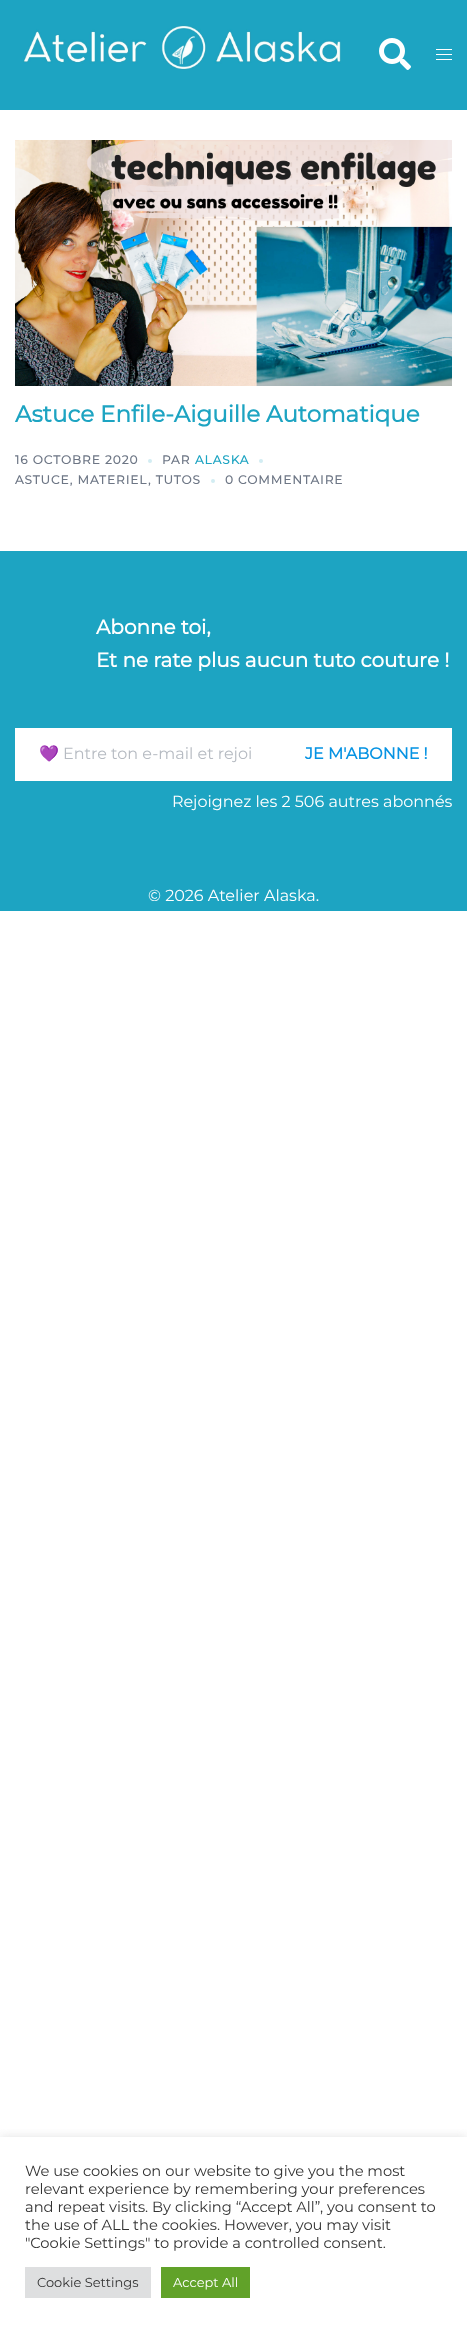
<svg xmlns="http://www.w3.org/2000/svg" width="467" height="2328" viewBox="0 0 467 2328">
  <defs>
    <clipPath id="clip1"><rect x="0" y="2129" width="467" height="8"/></clipPath>
  </defs>
  <rect width="100%" height="100%" fill="rgb(255,255,255)"/>
  <rect x="0" y="0" width="467" height="110" fill="rgb(29,164,194)"/>
  <image x="23" y="25" width="318" height="45" href="pic1.png"/>
  <image x="379" y="38" width="32" height="32" href="pic2.png"/>
  <rect x="436" y="49" width="16" height="1" fill="rgb(255,255,255)"/>
  <rect x="436" y="54" width="16" height="1" fill="rgb(255,255,255)"/>
  <rect x="436" y="59" width="16" height="1" fill="rgb(255,255,255)"/>
  <image x="15" y="140" width="437" height="246" href="pic3.png"/>
  <text x="15" y="422" font-family="Montserrat" font-size="23" font-weight="bold" fill="rgb(29,164,194)">Astuce Enfile-Aiguille Automatique</text>
  <text x="15" y="464" font-family="Montserrat" font-size="12" font-weight="bold" letter-spacing="1" fill="rgb(109,118,133)">16 OCTOBRE 2020</text>
  <circle cx="150" cy="461" r="2" fill="rgb(210,237,243)"/>
  <text x="162" y="464" font-family="Montserrat" font-size="12" font-weight="bold" letter-spacing="1" fill="rgb(109,118,133)">PAR</text>
  <text x="195" y="464" font-family="Montserrat" font-size="12" font-weight="bold" letter-spacing="1" fill="rgb(29,164,194)">ALASKA</text>
  <circle cx="261" cy="461" r="2" fill="rgb(210,237,243)"/>
  <g font-family="Montserrat" font-size="12" font-weight="bold" letter-spacing="1" fill="rgb(109,118,133)">
    <text x="15" y="484">ASTUCE, MATERIEL</text>
    <text x="148" y="484">, TUTOS</text>
  </g>
  <circle cx="213" cy="481" r="2" fill="rgb(210,237,243)"/>
  <text x="225" y="484" font-family="Montserrat" font-size="12" font-weight="bold" letter-spacing="1" fill="rgb(109,118,133)">0 COMMENTAIRE</text>
  <rect x="0" y="551" width="467" height="360" fill="rgb(29,164,194)"/>
  <g font-family="Montserrat" font-size="20" font-weight="bold" fill="rgb(255,255,255)">
    <text>
      <tspan x="96" y="634">Abonne toi,</tspan>
      <tspan x="96" y="667">Et ne rate plus aucun tuto couture !</tspan>
    </text>
  </g>
  <rect x="15" y="728" width="437" height="53" fill="rgb(255,255,255)"/>
  <text x="39" y="759" font-family="Noto Color Emoji" font-size="16" fill="rgb(182,187,194)">💜</text>
  <text x="63" y="759" font-family="Montserrat" font-size="16" font-weight="100" fill="rgb(182,187,194)">Entre ton e-mail et rejoi</text>
  <text x="305" y="759" font-family="Montserrat" font-size="16" font-weight="bold" fill="rgb(6,147,227)">JE M'ABONNE !</text>
  <g font-family="Montserrat" font-size="16" font-weight="100" fill="rgb(255,255,255)">
    <text x="172" y="807">Rejoignez les 2 506 autres abonnés</text>
    <text x="148" y="901">© 2026 Atelier Alaska.</text>
  </g>
  <g clip-path="url(#clip1)">
    <rect x="0" y="2136" width="467" height="191" fill="rgba(172,171,171,0.3)" filter="blur(5px)"/>
  </g>
  <g font-family="Montserrat" font-size="14.7" font-weight="100" fill="rgb(51,51,51)">
    <text>
      <tspan x="25" y="2176">We use cookies on our website to give you the most</tspan>
      <tspan x="25" y="2194">relevant experience by remembering your preferences</tspan>
      <tspan x="25" y="2212">and repeat visits. By clicking “Accept All”, you consent to</tspan>
      <tspan x="25" y="2230">the use of ALL the cookies. However, you may visit</tspan>
      <tspan x="25" y="2248">"Cookie Settings" to provide a controlled consent.</tspan>
    </text>
  </g>
  <rect x="25" y="2267" width="126" height="31" fill="rgb(222,223,224)"/>
  <text x="37" y="2287" font-family="Montserrat" font-size="13" font-weight="100" fill="rgb(51,51,51)">Cookie Settings</text>
  <rect x="161" y="2267" width="89" height="31" fill="rgb(97,162,41)"/>
  <text x="173" y="2287" font-family="Montserrat" font-size="13" font-weight="100" fill="rgb(255,255,255)">Accept All</text>
</svg>
